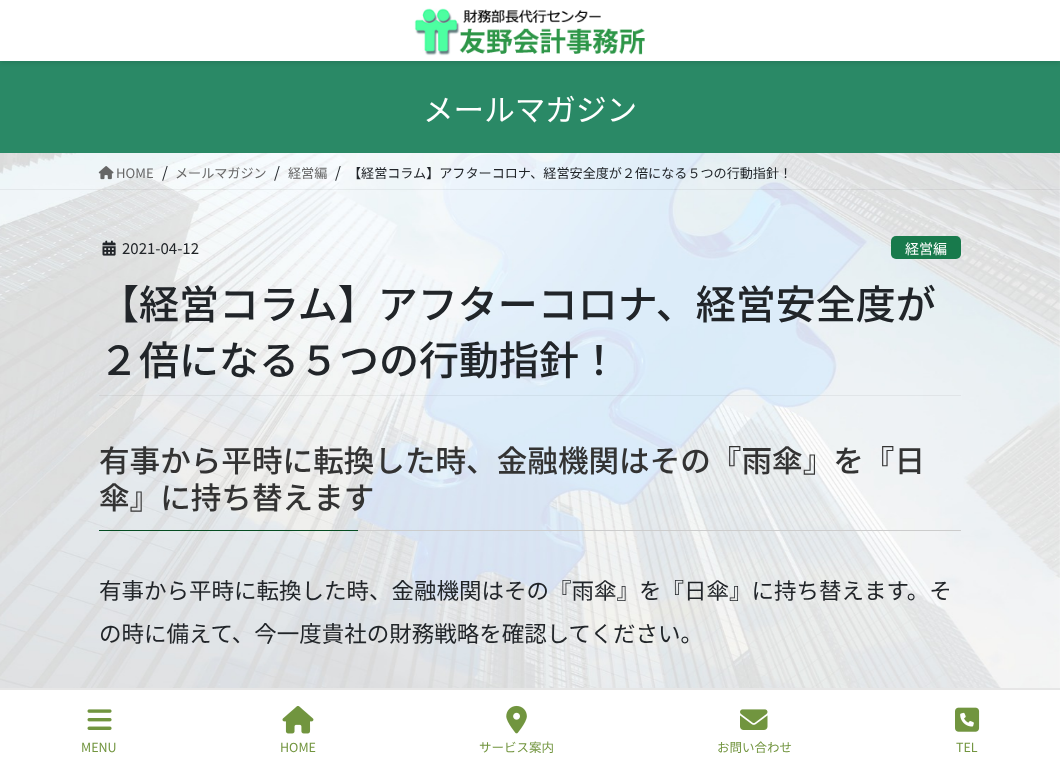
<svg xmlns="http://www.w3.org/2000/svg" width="1060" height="767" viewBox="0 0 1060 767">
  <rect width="100%" height="100%" fill="rgb(255,255,255)"/>
  <image x="0" y="153" width="1060" height="535" href="pic1.png"/>
  <rect x="0" y="61" width="1060" height="92" fill="rgb(42,137,102)"/>
  <rect x="0" y="1" width="1060" height="62" fill="rgba(0,0,0,0.1)" filter="blur(2px)"/>
  <rect x="0" y="0" width="1060" height="61" fill="rgb(255,255,255)"/>
  <image x="414" y="8" width="231" height="48" href="pic2.png"/>
  <text x="423" y="121" font-family="Noto Sans JP" font-size="30.6" fill="rgb(255,255,255)">メールマガジン</text>
  <rect x="0" y="189" width="1060" height="1" fill="rgba(0,0,0,0.05)"/>
  <image x="98" y="166" width="16" height="14" href="pic3.png"/>
  <text x="116" y="178" font-family="Noto Sans JP" font-size="13.1" fill="rgb(102,102,102)">HOME</text>
  <text x="162" y="178" font-family="Noto Sans JP" font-size="15" fill="rgb(33,37,41)">/</text>
  <text x="175" y="178" font-family="Noto Sans JP" font-size="13.1" fill="rgb(102,102,102)">メールマガジン</text>
  <text x="274" y="178" font-family="Noto Sans JP" font-size="15" fill="rgb(33,37,41)">/</text>
  <text x="288" y="178" font-family="Noto Sans JP" font-size="13.1" fill="rgb(102,102,102)">経営編</text>
  <text x="335" y="178" font-family="Noto Sans JP" font-size="15" fill="rgb(33,37,41)">/</text>
  <text x="348" y="178" font-family="Noto Sans JP" font-size="13.1" fill="rgb(33,37,41)">【経営コラム】アフターコロナ、経営安全度が２倍になる５つの行動指針！</text>
  <rect x="99" y="395" width="862" height="1" fill="rgba(0,0,0,0.05)"/>
  <image x="102" y="240" width="14" height="16" href="pic4.png"/>
  <text x="122" y="254" font-family="Noto Sans JP" font-size="15" fill="rgb(33,37,41)">2021-04-12</text>
  <rect x="891" y="236" width="70" height="23" rx="5" fill="rgb(24,122,76)"/>
  <text x="905" y="254" font-family="Noto Sans JP" font-size="14" fill="rgb(255,255,255)">経営編</text>
  <g font-family="Noto Sans JP" font-size="40" font-weight="500" fill="rgb(33,37,41)">
    <text>
      <tspan x="99" y="319">【経営コラム】アフターコロナ、経営安全度が</tspan>
      <tspan x="99" y="375">２倍になる５つの行動指針！</tspan>
    </text>
  </g>
  <rect x="358" y="530" width="603" height="1" fill="rgb(204,204,204)"/>
  <g font-family="Noto Sans JP" font-size="30.6" font-weight="500" fill="rgb(51,51,51)">
    <text>
      <tspan x="99" y="472">有事から平時に転換した時、金融機関はその『雨傘』を『日</tspan>
      <tspan x="99" y="509">傘』に持ち替えます</tspan>
    </text>
  </g>
  <rect x="99" y="530" width="259" height="1" fill="rgb(4,76,33)"/>
  <g font-family="Noto Sans JP" font-size="22.5" fill="rgb(33,37,41)">
    <text>
      <tspan x="99" y="599">有事から平時に転換した時、金融機関はその『雨傘』を『日傘』に持ち替えます。そ</tspan>
      <tspan x="99" y="642">の時に備えて、今一度貴社の財務戦略を確認してください。</tspan>
    </text>
  </g>
  <rect x="0" y="688" width="1060" height="2" fill="rgb(230,230,230)"/>
  <image x="87" y="709" width="25" height="21" href="pic5.png"/>
  <text x="81" y="752" font-family="Noto Sans JP" font-size="12.5" fill="rgb(114,149,63)">MENU</text>
  <image x="282" y="706" width="32" height="28" href="pic6.png"/>
  <text x="280" y="752" font-family="Noto Sans JP" font-size="12.5" fill="rgb(114,149,63)">HOME</text>
  <image x="506" y="705" width="21" height="29" href="pic7.png"/>
  <text x="479" y="752" font-family="Noto Sans JP" font-size="12.5" fill="rgb(114,149,63)">サービス案内</text>
  <image x="740" y="709" width="28" height="21" href="pic8.png"/>
  <text x="717" y="752" font-family="Noto Sans JP" font-size="12.5" fill="rgb(114,149,63)">お問い合わせ</text>
  <image x="955" y="707" width="25" height="25" href="pic9.png"/>
  <text x="956" y="752" font-family="Noto Sans JP" font-size="12.5" fill="rgb(114,149,63)">TEL</text>
</svg>
